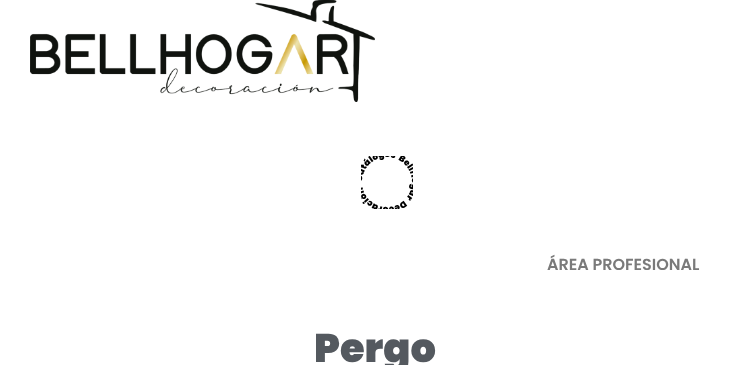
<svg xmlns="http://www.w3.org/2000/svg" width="749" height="365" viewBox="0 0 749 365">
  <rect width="100%" height="100%" fill="rgb(255,255,255)"/>
  <image x="30" y="0" width="345" height="102" href="pic1.png"/>
  <image x="361" y="156" width="52" height="53" href="pic2.png"/>
  <text x="547" y="270" font-family="Poppins" font-size="16" font-weight="600" fill="rgb(122,122,122)">ÁREA PROFESIONAL</text>
  <text x="314" y="362" font-family="Poppins" font-size="40" font-weight="900" fill="rgb(84,89,95)">Pergo</text>
</svg>
